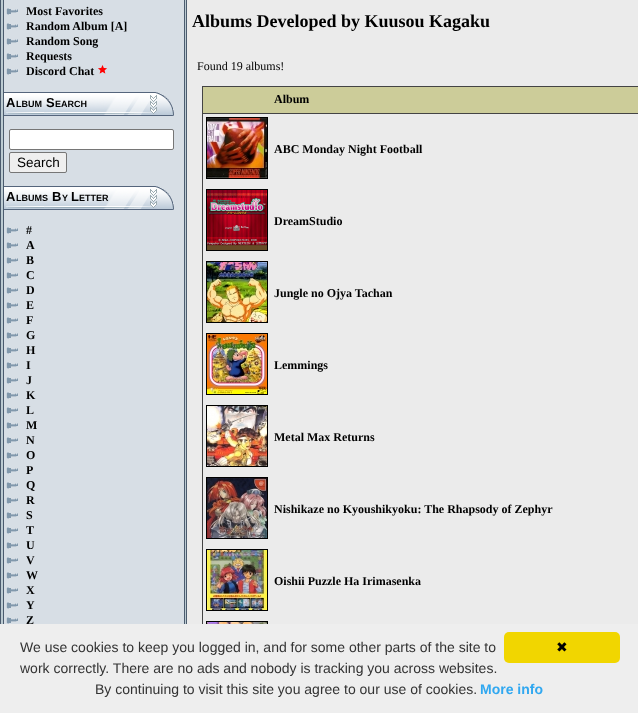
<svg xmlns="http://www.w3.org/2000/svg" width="638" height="713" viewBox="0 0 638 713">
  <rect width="100%" height="100%" fill="rgb(188,203,210)"/>
  <rect x="0" y="0" width="1" height="624" fill="rgb(75,91,110)"/>
  <rect x="4" y="0" width="180" height="624" fill="rgb(215,222,229)"/>
  <rect x="184" y="0" width="1" height="624" fill="rgb(75,91,110)"/>
  <rect x="3" y="0" width="1" height="624" fill="rgb(75,91,110)"/>
  <image x="6" y="8" width="12" height="7" href="pic1.png"/>
  <text x="26" y="15" font-family="Liberation Serif" font-size="12" font-weight="bold" fill="rgb(0,0,0)">Most Favorites</text>
  <image x="6" y="23" width="12" height="7" href="pic1.png"/>
  <text x="26" y="30" font-family="Liberation Serif" font-size="12" font-weight="bold" fill="rgb(0,0,0)">Random Album [A]</text>
  <image x="6" y="38" width="12" height="7" href="pic1.png"/>
  <text x="26" y="45" font-family="Liberation Serif" font-size="12" font-weight="bold" fill="rgb(0,0,0)">Random Song</text>
  <image x="6" y="53" width="12" height="7" href="pic1.png"/>
  <text x="26" y="60" font-family="Liberation Serif" font-size="12" font-weight="bold" fill="rgb(0,0,0)">Requests</text>
  <image x="6" y="68" width="12" height="7" href="pic1.png"/>
  <text x="26" y="75" font-family="Liberation Serif" font-size="12" font-weight="bold" fill="rgb(0,0,0)">Discord Chat</text>
  <image x="98" y="65" width="9" height="9" href="pic2.png"/>
  <image x="4" y="92" width="170" height="24" href="pic3.png"/>
  <text x="6" y="107" font-family="Liberation Sans" font-size="13" font-weight="bold" fill="rgb(0,0,0)">A</text>
  <text x="16" y="107" font-family="Liberation Sans" font-size="9" font-weight="bold" fill="rgb(0,0,0)">LBUM</text>
  <text x="46" y="107" font-family="Liberation Sans" font-size="13" font-weight="bold" fill="rgb(0,0,0)">S</text>
  <text x="55" y="107" font-family="Liberation Sans" font-size="9" font-weight="bold" fill="rgb(0,0,0)">EARCH</text>
  <rect x="9.5" y="129.5" width="164" height="20" rx="1.5" fill="rgb(255,255,255)" stroke="rgb(118,118,118)"/>
  <rect x="9.5" y="152.5" width="57" height="20" rx="1.5" fill="rgb(239,239,239)" stroke="rgb(118,118,118)"/>
  <text x="17" y="167" font-family="Liberation Sans" font-size="13.5" fill="rgb(0,0,0)">Search</text>
  <image x="4" y="186" width="170" height="24" href="pic3.png"/>
  <text x="6" y="201" font-family="Liberation Sans" font-size="13" font-weight="bold" fill="rgb(0,0,0)">A</text>
  <text x="16" y="201" font-family="Liberation Sans" font-size="9" font-weight="bold" fill="rgb(0,0,0)">LBUMS</text>
  <text x="52" y="201" font-family="Liberation Sans" font-size="13" font-weight="bold" fill="rgb(0,0,0)">B</text>
  <text x="62" y="201" font-family="Liberation Sans" font-size="9" font-weight="bold" fill="rgb(0,0,0)">Y</text>
  <text x="71" y="201" font-family="Liberation Sans" font-size="13" font-weight="bold" fill="rgb(0,0,0)">L</text>
  <text x="79" y="201" font-family="Liberation Sans" font-size="9" font-weight="bold" fill="rgb(0,0,0)">ETTER</text>
  <image x="6" y="227" width="12" height="7" href="pic1.png"/>
  <text x="26" y="234" font-family="Liberation Serif" font-size="12" font-weight="bold" fill="rgb(0,0,0)">#</text>
  <image x="6" y="242" width="12" height="7" href="pic1.png"/>
  <text x="26" y="249" font-family="Liberation Serif" font-size="12" font-weight="bold" fill="rgb(0,0,0)">A</text>
  <image x="6" y="257" width="12" height="7" href="pic1.png"/>
  <text x="26" y="264" font-family="Liberation Serif" font-size="12" font-weight="bold" fill="rgb(0,0,0)">B</text>
  <image x="6" y="272" width="12" height="7" href="pic1.png"/>
  <text x="26" y="279" font-family="Liberation Serif" font-size="12" font-weight="bold" fill="rgb(0,0,0)">C</text>
  <image x="6" y="287" width="12" height="7" href="pic1.png"/>
  <text x="26" y="294" font-family="Liberation Serif" font-size="12" font-weight="bold" fill="rgb(0,0,0)">D</text>
  <image x="6" y="302" width="12" height="7" href="pic1.png"/>
  <text x="26" y="309" font-family="Liberation Serif" font-size="12" font-weight="bold" fill="rgb(0,0,0)">E</text>
  <image x="6" y="317" width="12" height="7" href="pic1.png"/>
  <text x="26" y="324" font-family="Liberation Serif" font-size="12" font-weight="bold" fill="rgb(0,0,0)">F</text>
  <image x="6" y="332" width="12" height="7" href="pic1.png"/>
  <text x="26" y="339" font-family="Liberation Serif" font-size="12" font-weight="bold" fill="rgb(0,0,0)">G</text>
  <image x="6" y="347" width="12" height="7" href="pic1.png"/>
  <text x="26" y="354" font-family="Liberation Serif" font-size="12" font-weight="bold" fill="rgb(0,0,0)">H</text>
  <image x="6" y="362" width="12" height="7" href="pic1.png"/>
  <text x="26" y="369" font-family="Liberation Serif" font-size="12" font-weight="bold" fill="rgb(0,0,0)">I</text>
  <image x="6" y="377" width="12" height="7" href="pic1.png"/>
  <text x="26" y="384" font-family="Liberation Serif" font-size="12" font-weight="bold" fill="rgb(0,0,0)">J</text>
  <image x="6" y="392" width="12" height="7" href="pic1.png"/>
  <text x="26" y="399" font-family="Liberation Serif" font-size="12" font-weight="bold" fill="rgb(0,0,0)">K</text>
  <image x="6" y="407" width="12" height="7" href="pic1.png"/>
  <text x="26" y="414" font-family="Liberation Serif" font-size="12" font-weight="bold" fill="rgb(0,0,0)">L</text>
  <image x="6" y="422" width="12" height="7" href="pic1.png"/>
  <text x="26" y="429" font-family="Liberation Serif" font-size="12" font-weight="bold" fill="rgb(0,0,0)">M</text>
  <image x="6" y="437" width="12" height="7" href="pic1.png"/>
  <text x="26" y="444" font-family="Liberation Serif" font-size="12" font-weight="bold" fill="rgb(0,0,0)">N</text>
  <image x="6" y="452" width="12" height="7" href="pic1.png"/>
  <text x="26" y="459" font-family="Liberation Serif" font-size="12" font-weight="bold" fill="rgb(0,0,0)">O</text>
  <image x="6" y="467" width="12" height="7" href="pic1.png"/>
  <text x="26" y="474" font-family="Liberation Serif" font-size="12" font-weight="bold" fill="rgb(0,0,0)">P</text>
  <image x="6" y="482" width="12" height="7" href="pic1.png"/>
  <text x="26" y="489" font-family="Liberation Serif" font-size="12" font-weight="bold" fill="rgb(0,0,0)">Q</text>
  <image x="6" y="497" width="12" height="7" href="pic1.png"/>
  <text x="26" y="504" font-family="Liberation Serif" font-size="12" font-weight="bold" fill="rgb(0,0,0)">R</text>
  <image x="6" y="512" width="12" height="7" href="pic1.png"/>
  <text x="26" y="519" font-family="Liberation Serif" font-size="12" font-weight="bold" fill="rgb(0,0,0)">S</text>
  <image x="6" y="527" width="12" height="7" href="pic1.png"/>
  <text x="26" y="534" font-family="Liberation Serif" font-size="12" font-weight="bold" fill="rgb(0,0,0)">T</text>
  <image x="6" y="542" width="12" height="7" href="pic1.png"/>
  <text x="26" y="549" font-family="Liberation Serif" font-size="12" font-weight="bold" fill="rgb(0,0,0)">U</text>
  <image x="6" y="557" width="12" height="7" href="pic1.png"/>
  <text x="26" y="564" font-family="Liberation Serif" font-size="12" font-weight="bold" fill="rgb(0,0,0)">V</text>
  <image x="6" y="572" width="12" height="7" href="pic1.png"/>
  <text x="26" y="579" font-family="Liberation Serif" font-size="12" font-weight="bold" fill="rgb(0,0,0)">W</text>
  <image x="6" y="587" width="12" height="7" href="pic1.png"/>
  <text x="26" y="594" font-family="Liberation Serif" font-size="12" font-weight="bold" fill="rgb(0,0,0)">X</text>
  <image x="6" y="602" width="12" height="7" href="pic1.png"/>
  <text x="26" y="609" font-family="Liberation Serif" font-size="12" font-weight="bold" fill="rgb(0,0,0)">Y</text>
  <image x="6" y="617" width="12" height="7" href="pic1.png"/>
  <text x="26" y="624" font-family="Liberation Serif" font-size="12" font-weight="bold" fill="rgb(0,0,0)">Z</text>
  <rect x="187" y="0" width="451" height="624" fill="rgb(235,235,235)"/>
  <rect x="186" y="0" width="1" height="624" fill="rgb(75,91,110)"/>
  <text x="192" y="27" font-family="Liberation Serif" font-size="18" font-weight="bold" fill="rgb(0,0,0)">Albums Developed by Kuusou Kagaku</text>
  <text x="197" y="70" font-family="Liberation Serif" font-size="12" fill="rgb(0,0,0)">Found 19 albums!</text>
  <rect x="202" y="86" width="436" height="1" fill="rgb(68,68,68)"/>
  <rect x="202" y="86" width="1" height="538" fill="rgb(68,68,68)"/>
  <rect x="203" y="87" width="435" height="26" fill="rgb(204,204,153)"/>
  <rect x="202" y="113" width="436" height="1" fill="rgb(68,68,68)"/>
  <text x="274" y="103" font-family="Liberation Serif" font-size="12" font-weight="bold" fill="rgb(0,0,0)">Album</text>
  <rect x="206.5" y="117.5" width="61" height="61" fill="none" stroke="rgb(0,0,0)"/>
  <image x="207" y="118" width="60" height="60" href="pic4.png"/>
  <text x="274" y="153" font-family="Liberation Serif" font-size="12" font-weight="bold" fill="rgb(0,0,0)">ABC Monday Night Football</text>
  <rect x="206.5" y="189.5" width="61" height="61" fill="none" stroke="rgb(0,0,0)"/>
  <image x="207" y="190" width="60" height="60" href="pic5.png"/>
  <text x="274" y="225" font-family="Liberation Serif" font-size="12" font-weight="bold" fill="rgb(0,0,0)">DreamStudio</text>
  <rect x="206.5" y="261.5" width="61" height="61" fill="none" stroke="rgb(0,0,0)"/>
  <image x="207" y="262" width="60" height="60" href="pic6.png"/>
  <text x="274" y="297" font-family="Liberation Serif" font-size="12" font-weight="bold" fill="rgb(0,0,0)">Jungle no Ojya Tachan</text>
  <rect x="206.5" y="333.5" width="61" height="61" fill="none" stroke="rgb(0,0,0)"/>
  <image x="207" y="334" width="60" height="60" href="pic7.png"/>
  <text x="274" y="369" font-family="Liberation Serif" font-size="12" font-weight="bold" fill="rgb(0,0,0)">Lemmings</text>
  <rect x="206.5" y="405.5" width="61" height="61" fill="none" stroke="rgb(0,0,0)"/>
  <image x="207" y="406" width="60" height="60" href="pic8.png"/>
  <text x="274" y="441" font-family="Liberation Serif" font-size="12" font-weight="bold" fill="rgb(0,0,0)">Metal Max Returns</text>
  <rect x="206.5" y="477.5" width="61" height="61" fill="none" stroke="rgb(0,0,0)"/>
  <image x="207" y="478" width="60" height="60" href="pic9.png"/>
  <text x="274" y="513" font-family="Liberation Serif" font-size="12" font-weight="bold" fill="rgb(0,0,0)">Nishikaze no Kyoushikyoku: The Rhapsody of Zephyr</text>
  <rect x="206.5" y="549.5" width="61" height="61" fill="none" stroke="rgb(0,0,0)"/>
  <image x="207" y="550" width="60" height="60" href="pic10.png"/>
  <text x="274" y="585" font-family="Liberation Serif" font-size="12" font-weight="bold" fill="rgb(0,0,0)">Oishii Puzzle Ha Irimasenka</text>
  <rect x="206.5" y="621.5" width="61" height="61" fill="none" stroke="rgb(0,0,0)"/>
  <image x="207" y="622" width="60" height="2" href="pic11.png"/>
  <rect x="0" y="624" width="638" height="89" fill="rgb(238,238,238)"/>
  <g font-family="Liberation Sans" font-size="14" fill="rgb(51,51,51)">
    <text>
      <tspan x="20" y="652">We use cookies to keep you logged in, and for some other parts of the site to</tspan>
      <tspan x="20" y="673">work correctly. There are no ads and nobody is tracking you across websites.</tspan>
    </text>
    <text x="95" y="694">By continuing to visit this site you agree to our use of cookies.</text>
  </g>
  <text x="480" y="694" font-family="Liberation Sans" font-size="14" font-weight="bold" fill="rgb(49,168,240)">More info</text>
  <rect x="504" y="632" width="116" height="31" rx="5" fill="rgb(241,214,0)"/>
  <text x="556" y="652" font-family="DejaVu Sans" font-size="14" fill="rgb(0,0,0)">✖</text>
</svg>
